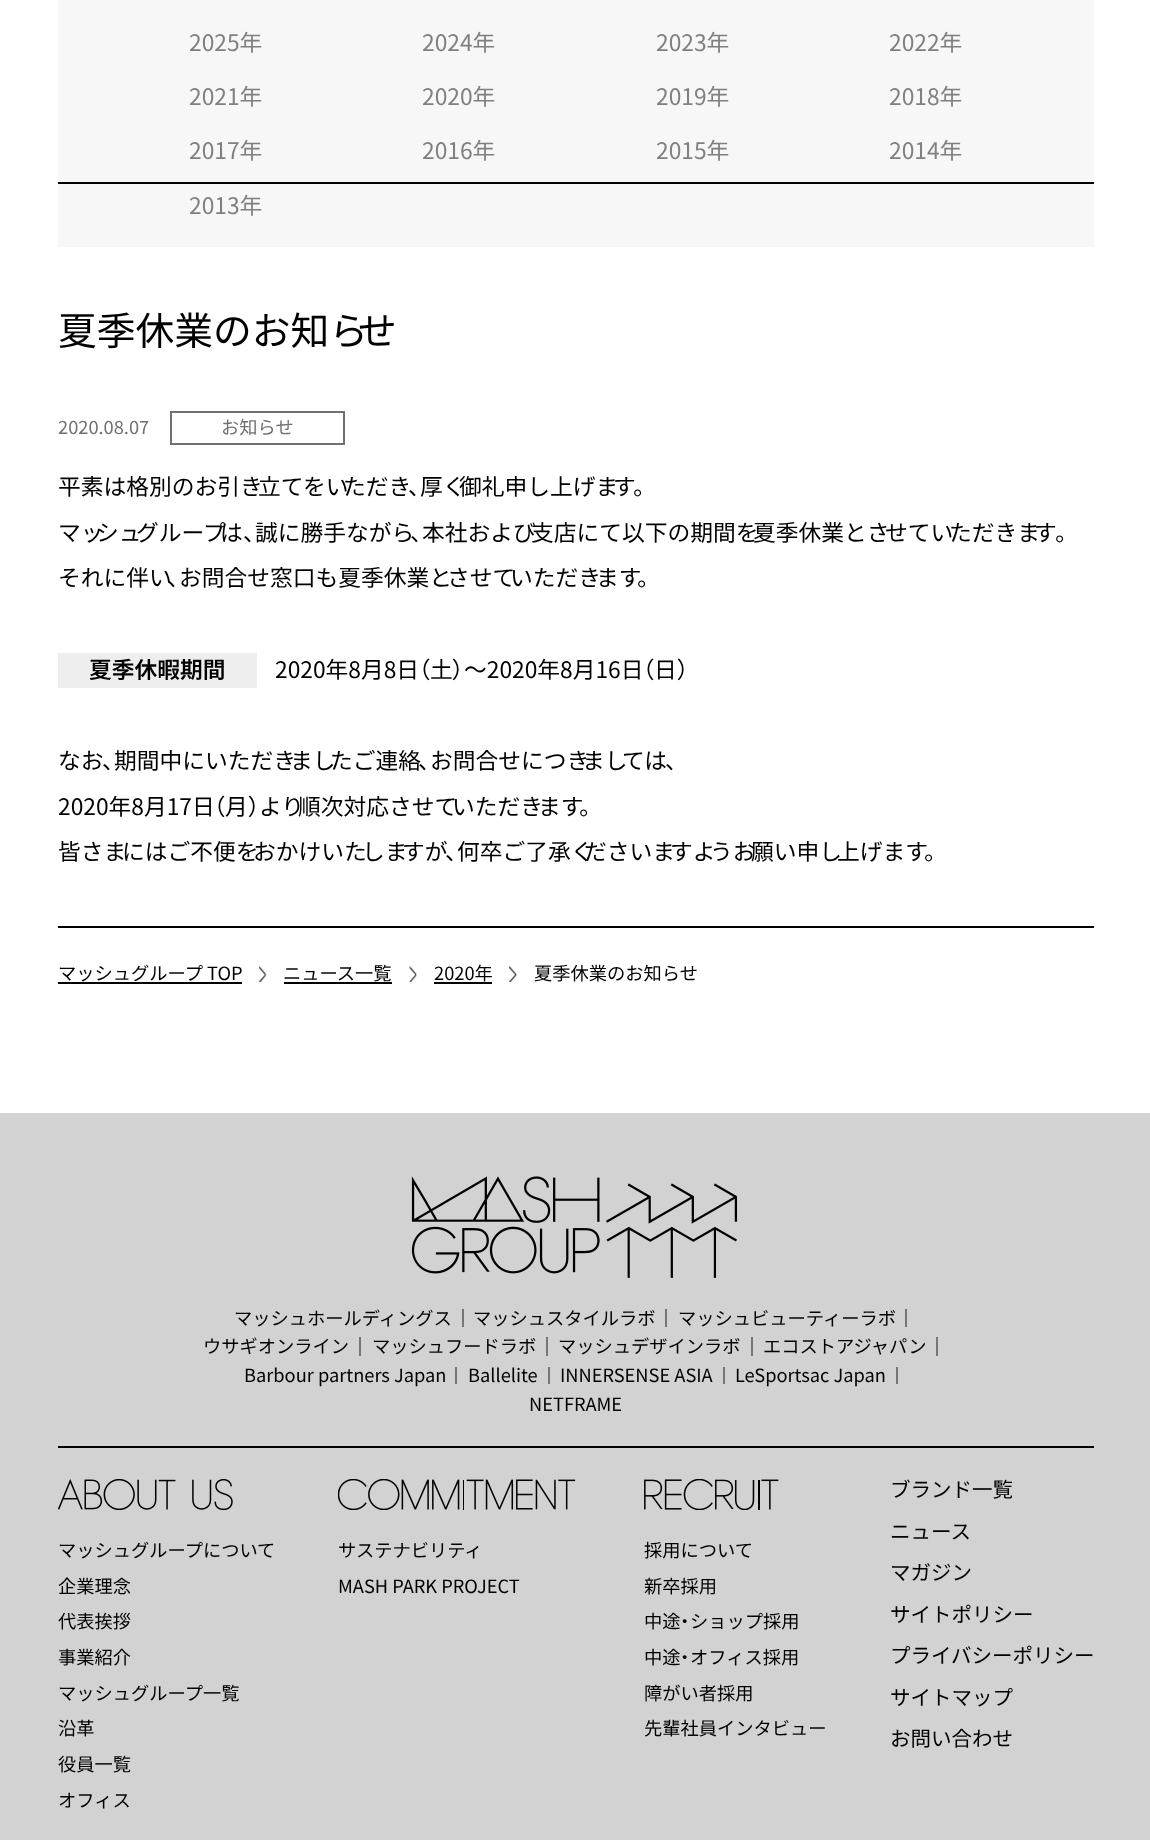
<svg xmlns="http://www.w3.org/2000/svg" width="1150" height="1840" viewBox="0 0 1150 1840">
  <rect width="100%" height="100%" fill="rgb(255,255,255)"/>
  <rect x="58" y="0" width="1036" height="247" fill="rgb(247,247,247)"/>
  <g font-family="Noto Sans JP" font-size="22.75" fill="rgb(128,128,128)">
    <text x="189" y="51">2025年</text>
    <text x="422" y="51">2024年</text>
    <text x="656" y="51">2023年</text>
    <text x="889" y="51">2022年</text>
    <text x="189" y="105">2021年</text>
    <text x="422" y="105">2020年</text>
    <text x="656" y="105">2019年</text>
    <text x="889" y="105">2018年</text>
    <text x="189" y="159">2017年</text>
    <text x="422" y="159">2016年</text>
    <text x="656" y="159">2015年</text>
    <text x="889" y="159">2014年</text>
    <text x="189" y="214">2013年</text>
  </g>
  <text x="58" y="345" font-family="Noto Sans JP" font-size="38.75" fill="rgb(0,0,0)">夏季休業のお知ら</text>
  <text x="358" y="345" font-family="Noto Sans JP" font-size="38.75" fill="rgb(0,0,0)">せ</text>
  <text x="58" y="434" font-family="Noto Sans JP" font-size="18.25" fill="rgb(113,112,113)">2020.08.07</text>
  <rect x="171" y="412" width="173" height="32" fill="none" stroke="rgb(113,112,113)" stroke-width="2"/>
  <text x="221" y="434" font-family="Noto Sans JP" font-size="18.25" fill="rgb(113,112,113)">お知らせ</text>
  <text x="58" y="495" font-family="Noto Sans JP" font-size="22.75" fill="rgb(0,0,0)">平素は格別のお引き</text>
  <text x="258" y="495" font-family="Noto Sans JP" font-size="22.75" fill="rgb(0,0,0)">立てをい</text>
  <text x="343" y="495" font-family="Noto Sans JP" font-size="22.75" fill="rgb(0,0,0)">ただき</text>
  <text x="408" y="495" font-family="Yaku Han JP" font-size="22.75" fill="rgb(0,0,0)">、</text>
  <text x="420" y="495" font-family="Noto Sans JP" font-size="22.75" fill="rgb(0,0,0)">厚く</text>
  <text x="459" y="495" font-family="Noto Sans JP" font-size="22.75" fill="rgb(0,0,0)">御礼申し上げま</text>
  <text x="613" y="495" font-family="Noto Sans JP" font-size="22.75" fill="rgb(0,0,0)">す</text>
  <text x="633" y="495" font-family="Yaku Han JP" font-size="22.75" fill="rgb(0,0,0)">。</text>
  <text x="58" y="541" font-family="Noto Sans JP" font-size="22.75" fill="rgb(0,0,0)">マッ</text>
  <text x="96" y="541" font-family="Noto Sans JP" font-size="22.75" fill="rgb(0,0,0)">シュ</text>
  <text x="136" y="541" font-family="Noto Sans JP" font-size="22.75" fill="rgb(0,0,0)">グループ</text>
  <text x="220" y="541" font-family="Noto Sans JP" font-size="22.75" fill="rgb(0,0,0)">は</text>
  <text x="243" y="541" font-family="Yaku Han JP" font-size="22.75" fill="rgb(0,0,0)">、</text>
  <text x="255" y="541" font-family="Noto Sans JP" font-size="22.75" fill="rgb(0,0,0)">誠に勝手ながら</text>
  <text x="410" y="541" font-family="Yaku Han JP" font-size="22.75" fill="rgb(0,0,0)">、</text>
  <text x="422" y="541" font-family="Noto Sans JP" font-size="22.75" fill="rgb(0,0,0)">本社および</text>
  <text x="531" y="541" font-family="Noto Sans JP" font-size="22.75" fill="rgb(0,0,0)">支店にて以下の期間を</text>
  <text x="753" y="541" font-family="Noto Sans JP" font-size="22.75" fill="rgb(0,0,0)">夏季休業とさ</text>
  <text x="885" y="541" font-family="Noto Sans JP" font-size="22.75" fill="rgb(0,0,0)">せてい</text>
  <text x="949" y="541" font-family="Noto Sans JP" font-size="22.75" fill="rgb(0,0,0)">ただきま</text>
  <text x="1034" y="541" font-family="Noto Sans JP" font-size="22.75" fill="rgb(0,0,0)">す</text>
  <text x="1055" y="541" font-family="Yaku Han JP" font-size="22.75" fill="rgb(0,0,0)">。</text>
  <text x="58" y="586" font-family="Noto Sans JP" font-size="22.75" fill="rgb(0,0,0)">それに伴い</text>
  <text x="167" y="586" font-family="Yaku Han JP" font-size="22.75" fill="rgb(0,0,0)">、</text>
  <text x="179" y="586" font-family="Noto Sans JP" font-size="22.75" fill="rgb(0,0,0)">お問合せ窓口も夏季休業と</text>
  <text x="447" y="586" font-family="Noto Sans JP" font-size="22.75" fill="rgb(0,0,0)">させて</text>
  <text x="510" y="586" font-family="Noto Sans JP" font-size="22.75" fill="rgb(0,0,0)">いただき</text>
  <text x="596" y="586" font-family="Noto Sans JP" font-size="22.75" fill="rgb(0,0,0)">ます</text>
  <text x="637" y="586" font-family="Yaku Han JP" font-size="22.75" fill="rgb(0,0,0)">。</text>
  <rect x="58" y="653" width="199" height="35" fill="rgb(238,238,239)"/>
  <text x="89" y="678" font-family="Noto Sans JP" font-size="22.75" font-weight="600" fill="rgb(0,0,0)">夏季休暇期間</text>
  <text x="275" y="678" font-family="Noto Sans JP" font-size="22.75" fill="rgb(0,0,0)">2020年8月8日</text>
  <text x="419" y="678" font-family="Yaku Han JP" font-size="22.75" fill="rgb(0,0,0)">（</text>
  <text x="430" y="678" font-family="Noto Sans JP" font-size="22.75" fill="rgb(0,0,0)">土</text>
  <text x="452" y="678" font-family="Yaku Han JP" font-size="22.75" fill="rgb(0,0,0)">）</text>
  <text x="464" y="678" font-family="Noto Sans JP" font-size="22.75" fill="rgb(0,0,0)">～2020年8月16日</text>
  <text x="643" y="678" font-family="Yaku Han JP" font-size="22.75" fill="rgb(0,0,0)">（</text>
  <text x="654" y="678" font-family="Noto Sans JP" font-size="22.75" fill="rgb(0,0,0)">日</text>
  <text x="677" y="678" font-family="Yaku Han JP" font-size="22.75" fill="rgb(0,0,0)">）</text>
  <text x="58" y="769" font-family="Noto Sans JP" font-size="22.75" fill="rgb(0,0,0)">なお</text>
  <text x="102" y="769" font-family="Yaku Han JP" font-size="22.75" fill="rgb(0,0,0)">、</text>
  <text x="114" y="769" font-family="Noto Sans JP" font-size="22.75" fill="rgb(0,0,0)">期間中にいただき</text>
  <text x="290" y="769" font-family="Noto Sans JP" font-size="22.75" fill="rgb(0,0,0)">まし</text>
  <text x="330" y="769" font-family="Noto Sans JP" font-size="22.75" fill="rgb(0,0,0)">たご連絡</text>
  <text x="418" y="769" font-family="Yaku Han JP" font-size="22.75" fill="rgb(0,0,0)">、</text>
  <text x="430" y="769" font-family="Noto Sans JP" font-size="22.75" fill="rgb(0,0,0)">お問合せにつき</text>
  <text x="582" y="769" font-family="Noto Sans JP" font-size="22.75" fill="rgb(0,0,0)">まし</text>
  <text x="622" y="769" font-family="Noto Sans JP" font-size="22.75" fill="rgb(0,0,0)">ては</text>
  <text x="665" y="769" font-family="Yaku Han JP" font-size="22.75" fill="rgb(0,0,0)">、</text>
  <text x="58" y="815" font-family="Noto Sans JP" font-size="22.75" fill="rgb(0,0,0)">2020年8月17日</text>
  <text x="214" y="815" font-family="Yaku Han JP" font-size="22.75" fill="rgb(0,0,0)">（</text>
  <text x="225" y="815" font-family="Noto Sans JP" font-size="22.75" fill="rgb(0,0,0)">月</text>
  <text x="248" y="815" font-family="Yaku Han JP" font-size="22.75" fill="rgb(0,0,0)">）</text>
  <text x="259" y="815" font-family="Noto Sans JP" font-size="22.75" fill="rgb(0,0,0)">より</text>
  <text x="298" y="815" font-family="Noto Sans JP" font-size="22.75" fill="rgb(0,0,0)">順次対応させて</text>
  <text x="452" y="815" font-family="Noto Sans JP" font-size="22.75" fill="rgb(0,0,0)">いただき</text>
  <text x="538" y="815" font-family="Noto Sans JP" font-size="22.75" fill="rgb(0,0,0)">ます</text>
  <text x="579" y="815" font-family="Yaku Han JP" font-size="22.75" fill="rgb(0,0,0)">。</text>
  <text x="58" y="860" font-family="Noto Sans JP" font-size="22.75" fill="rgb(0,0,0)">皆さま</text>
  <text x="122" y="860" font-family="Noto Sans JP" font-size="22.75" fill="rgb(0,0,0)">にはご不便を</text>
  <text x="253" y="860" font-family="Noto Sans JP" font-size="22.75" fill="rgb(0,0,0)">おかけいた</text>
  <text x="362" y="860" font-family="Noto Sans JP" font-size="22.75" fill="rgb(0,0,0)">しま</text>
  <text x="402" y="860" font-family="Noto Sans JP" font-size="22.75" fill="rgb(0,0,0)">すが</text>
  <text x="445" y="860" font-family="Yaku Han JP" font-size="22.75" fill="rgb(0,0,0)">、</text>
  <text x="457" y="860" font-family="Noto Sans JP" font-size="22.75" fill="rgb(0,0,0)">何卒ご了承く</text>
  <text x="584" y="860" font-family="Noto Sans JP" font-size="22.75" fill="rgb(0,0,0)">ださいま</text>
  <text x="670" y="860" font-family="Noto Sans JP" font-size="22.75" fill="rgb(0,0,0)">すよ</text>
  <text x="710" y="860" font-family="Noto Sans JP" font-size="22.75" fill="rgb(0,0,0)">うお</text>
  <text x="751" y="860" font-family="Noto Sans JP" font-size="22.75" fill="rgb(0,0,0)">願い申し</text>
  <text x="837" y="860" font-family="Noto Sans JP" font-size="22.75" fill="rgb(0,0,0)">上げます</text>
  <text x="924" y="860" font-family="Yaku Han JP" font-size="22.75" fill="rgb(0,0,0)">。</text>
  <rect x="58" y="926" width="1036" height="2" fill="rgb(0,0,0)"/>
  <text x="58" y="980" font-family="Noto Sans JP" font-size="18.25" fill="rgb(0,0,0)">マッシュグループ TOP</text>
  <rect x="58" y="982" width="184" height="2" fill="rgb(0,0,0)"/>
  <image x="259" y="966" width="8" height="16" href="pic1.png"/>
  <text x="283" y="980" font-family="Noto Sans JP" font-size="18.25" fill="rgb(0,0,0)">ニュース一覧</text>
  <rect x="284" y="982" width="108" height="2" fill="rgb(0,0,0)"/>
  <image x="409" y="966" width="8" height="16" href="pic2.png"/>
  <text x="434" y="980" font-family="Noto Sans JP" font-size="18.25" fill="rgb(0,0,0)">2020年</text>
  <rect x="434" y="982" width="58" height="2" fill="rgb(0,0,0)"/>
  <image x="509" y="966" width="8" height="16" href="pic3.png"/>
  <text x="534" y="980" font-family="Noto Sans JP" font-size="18.25" fill="rgb(0,0,0)">夏季休業のお知らせ</text>
  <rect x="0" y="1113" width="1150" height="727" fill="rgb(210,210,210)"/>
  <image x="411" y="1176" width="327" height="102" href="pic4.png"/>
  <rect x="462" y="1309" width="2" height="18" fill="rgb(118,118,118)"/>
  <text x="234" y="1325" font-family="Noto Sans JP" font-size="18.25" fill="rgb(0,0,0)">マッシュホールディングス</text>
  <rect x="665" y="1309" width="2" height="18" fill="rgb(118,118,118)"/>
  <text x="473" y="1325" font-family="Noto Sans JP" font-size="18.25" fill="rgb(0,0,0)">マッシュスタイルラボ</text>
  <rect x="905" y="1309" width="2" height="18" fill="rgb(118,118,118)"/>
  <text x="678" y="1325" font-family="Noto Sans JP" font-size="18.25" fill="rgb(0,0,0)">マッシュビューティーラボ</text>
  <rect x="359" y="1337" width="2" height="19" fill="rgb(118,118,118)"/>
  <text x="203" y="1353" font-family="Noto Sans JP" font-size="18.25" fill="rgb(0,0,0)">ウサギオンライン</text>
  <rect x="546" y="1337" width="2" height="19" fill="rgb(118,118,118)"/>
  <text x="372" y="1353" font-family="Noto Sans JP" font-size="18.25" fill="rgb(0,0,0)">マッシュフードラボ</text>
  <rect x="751" y="1337" width="2" height="19" fill="rgb(118,118,118)"/>
  <text x="558" y="1353" font-family="Noto Sans JP" font-size="18.25" fill="rgb(0,0,0)">マッシュデザインラボ</text>
  <rect x="936" y="1337" width="2" height="19" fill="rgb(118,118,118)"/>
  <text x="763" y="1353" font-family="Noto Sans JP" font-size="18.25" fill="rgb(0,0,0)">エコストアジャパン</text>
  <rect x="455" y="1367" width="2" height="17" fill="rgb(118,118,118)"/>
  <text x="244" y="1382" font-family="Noto Sans JP" font-size="18.25" fill="rgb(0,0,0)">Barbour partners Japan</text>
  <rect x="548" y="1367" width="2" height="17" fill="rgb(118,118,118)"/>
  <text x="468" y="1382" font-family="Noto Sans JP" font-size="18.25" fill="rgb(0,0,0)">Ballelite</text>
  <rect x="723" y="1367" width="2" height="17" fill="rgb(118,118,118)"/>
  <text x="560" y="1382" font-family="Noto Sans JP" font-size="18.25" fill="rgb(0,0,0)">INNERSENSE ASIA</text>
  <rect x="896" y="1367" width="2" height="17" fill="rgb(118,118,118)"/>
  <g font-family="Noto Sans JP" font-size="18.25" fill="rgb(0,0,0)">
    <text x="735" y="1382">LeSportsac Japan</text>
    <text x="529" y="1411">NETFRAME</text>
  </g>
  <rect x="58" y="1446" width="1036" height="2" fill="rgb(0,0,0)"/>
  <image x="58" y="1479" width="175" height="31" href="pic5.png"/>
  <g font-family="Noto Sans JP" font-size="18.25" fill="rgb(0,0,0)">
    <text>
      <tspan x="58" y="1557">マッシュグループについて</tspan>
      <tspan x="58" y="1593">企業理念</tspan>
      <tspan x="58" y="1628">代表挨拶</tspan>
      <tspan x="58" y="1664">事業紹介</tspan>
      <tspan x="58" y="1700">マッシュグループ一覧</tspan>
      <tspan x="58" y="1735">沿革</tspan>
      <tspan x="58" y="1771">役員一覧</tspan>
      <tspan x="58" y="1807">オフィス</tspan>
    </text>
  </g>
  <image x="338" y="1479" width="238" height="31" href="pic6.png"/>
  <g font-family="Noto Sans JP" font-size="18.25" fill="rgb(0,0,0)">
    <text>
      <tspan x="338" y="1557">サステナビリティ</tspan>
      <tspan x="338" y="1593">MASH PARK PROJECT</tspan>
    </text>
  </g>
  <image x="644" y="1479" width="135" height="31" href="pic7.png"/>
  <g font-family="Noto Sans JP" font-size="18.25" fill="rgb(0,0,0)">
    <text>
      <tspan x="644" y="1557">採用について</tspan>
      <tspan x="644" y="1593">新卒採用</tspan>
      <tspan x="644" y="1628">中途</tspan>
    </text>
  </g>
  <text x="680" y="1628" font-family="Yaku Han JP" font-size="18.25" fill="rgb(0,0,0)">・</text>
  <g font-family="Noto Sans JP" font-size="18.25" fill="rgb(0,0,0)">
    <text x="690" y="1628">ショップ採用</text>
    <text x="644" y="1664">中途</text>
  </g>
  <text x="680" y="1664" font-family="Yaku Han JP" font-size="18.25" fill="rgb(0,0,0)">・</text>
  <g font-family="Noto Sans JP" font-size="18.25" fill="rgb(0,0,0)">
    <text x="690" y="1664">オフィス採用</text>
    <text>
      <tspan x="644" y="1700">障がい者採用</tspan>
      <tspan x="644" y="1735">先輩社員インタビュー</tspan>
    </text>
  </g>
  <g font-family="Noto Sans JP" font-size="20.5" fill="rgb(0,0,0)">
    <text x="890" y="1497">ブランド一覧</text>
    <text x="890" y="1539">ニュース</text>
    <text x="890" y="1580">マガジン</text>
    <text x="890" y="1622">サイトポリシー</text>
    <text x="890" y="1663">プライバシーポリシー</text>
    <text x="890" y="1705">サイトマップ</text>
    <text x="890" y="1746">お問い合わせ</text>
  </g>
  <rect x="58" y="182" width="1036" height="2" fill="rgb(0,0,0)"/>
</svg>
